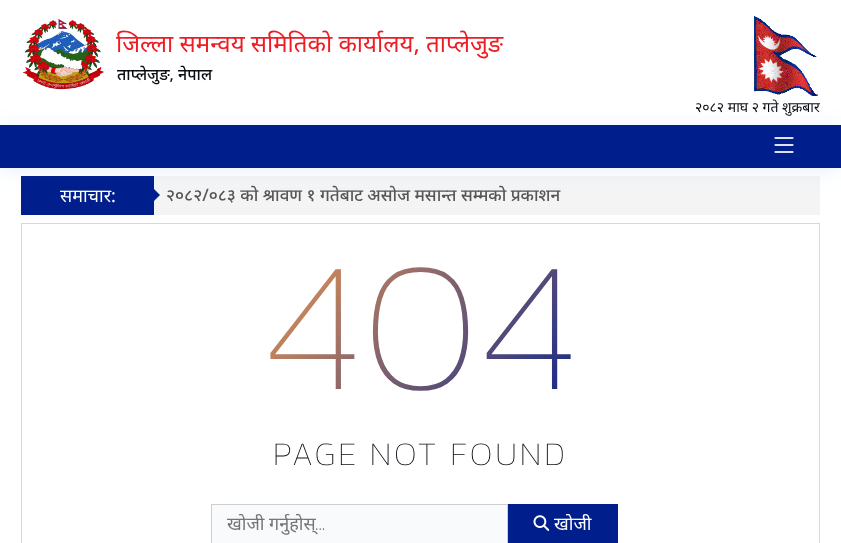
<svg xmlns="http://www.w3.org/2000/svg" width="841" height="543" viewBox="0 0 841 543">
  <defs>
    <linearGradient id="g1" gradientUnits="userSpaceOnUse" x1="273" y1="200" x2="568" y2="448"><stop offset="0" stop-color="rgb(255,163,79)"/><stop offset="1" stop-color="rgb(0,31,141)"/></linearGradient>
    <clipPath id="clip1"><rect x="227" y="511" width="265" height="24"/></clipPath>
  </defs>
  <rect width="100%" height="100%" fill="rgb(255,255,255)"/>
  <image x="22" y="18" width="83" height="72" href="pic1.png"/>
  <text x="116" y="52" font-family="Noto Sans" font-size="24" fill="rgb(238,29,37)">जिल्ला समन्वय समितिको कार्यालय, ताप्लेजुङ</text>
  <text x="117" y="80" font-family="Noto Sans" font-size="16" font-weight="500" fill="rgb(10,13,19)">ताप्लेजुङ, नेपाल</text>
  <image x="754" y="16" width="64" height="80" href="pic2.png"/>
  <text x="695" y="112" font-family="Noto Sans" font-size="14" fill="rgb(10,13,19)">२०८२ माघ २ गते शुक्रबार</text>
  <rect x="154" y="176" width="666" height="39" fill="rgb(244,244,244)"/>
  <rect x="21" y="176" width="133" height="39" fill="rgb(0,31,141)"/>
  <path d="M146 209V181L160 195Z" fill="rgb(0,31,141)"/>
  <rect x="0" y="127" width="841" height="43" fill="rgba(36,113,197,0.1)" filter="blur(10px)"/>
  <rect x="0" y="125" width="841" height="43" fill="rgb(0,31,141)"/>
  <image x="774" y="137" width="20" height="16" href="pic3.png"/>
  <text x="60" y="202" font-family="Noto Sans" font-size="18" fill="rgb(255,255,255)">समाचार:</text>
  <text x="166" y="201" font-family="Noto Sans" font-size="17" font-weight="500" fill="rgb(85,85,85)">२०८२/०८३ को श्रावण १ गतेबाट असोज मसान्त सम्मको प्रकाशन</text>
  <rect x="21.5" y="223.5" width="798" height="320" fill="none" stroke="rgb(215,215,215)"/>
  <text x="263" y="389" font-family="Kanit" font-size="186" font-weight="200" fill="url(#g1)">404</text>
  <text x="273" y="465" font-family="Kanit" font-size="33" font-weight="200" letter-spacing="3" fill="rgb(10,13,19)">PAGE NOT FOUND</text>
  <rect x="211.5" y="504.5" width="296" height="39" fill="rgb(248,250,251)" stroke="rgb(205,207,208)"/>
  <g clip-path="url(#clip1)">
    <text x="227" y="530" font-family="Noto Sans" font-size="18" fill="rgb(117,117,117)">खोजी गर्नुहोस्</text>
  </g>
  <text x="315" y="530" font-family="Raleway" font-size="18" fill="rgb(117,117,117)">...</text>
  <rect x="508" y="504" width="110" height="39" fill="rgb(0,31,141)"/>
  <image x="533" y="515" width="17" height="16" href="pic4.png"/>
  <text x="554" y="530" font-family="Noto Sans" font-size="18" fill="rgb(255,255,255)">खोजी</text>
</svg>
